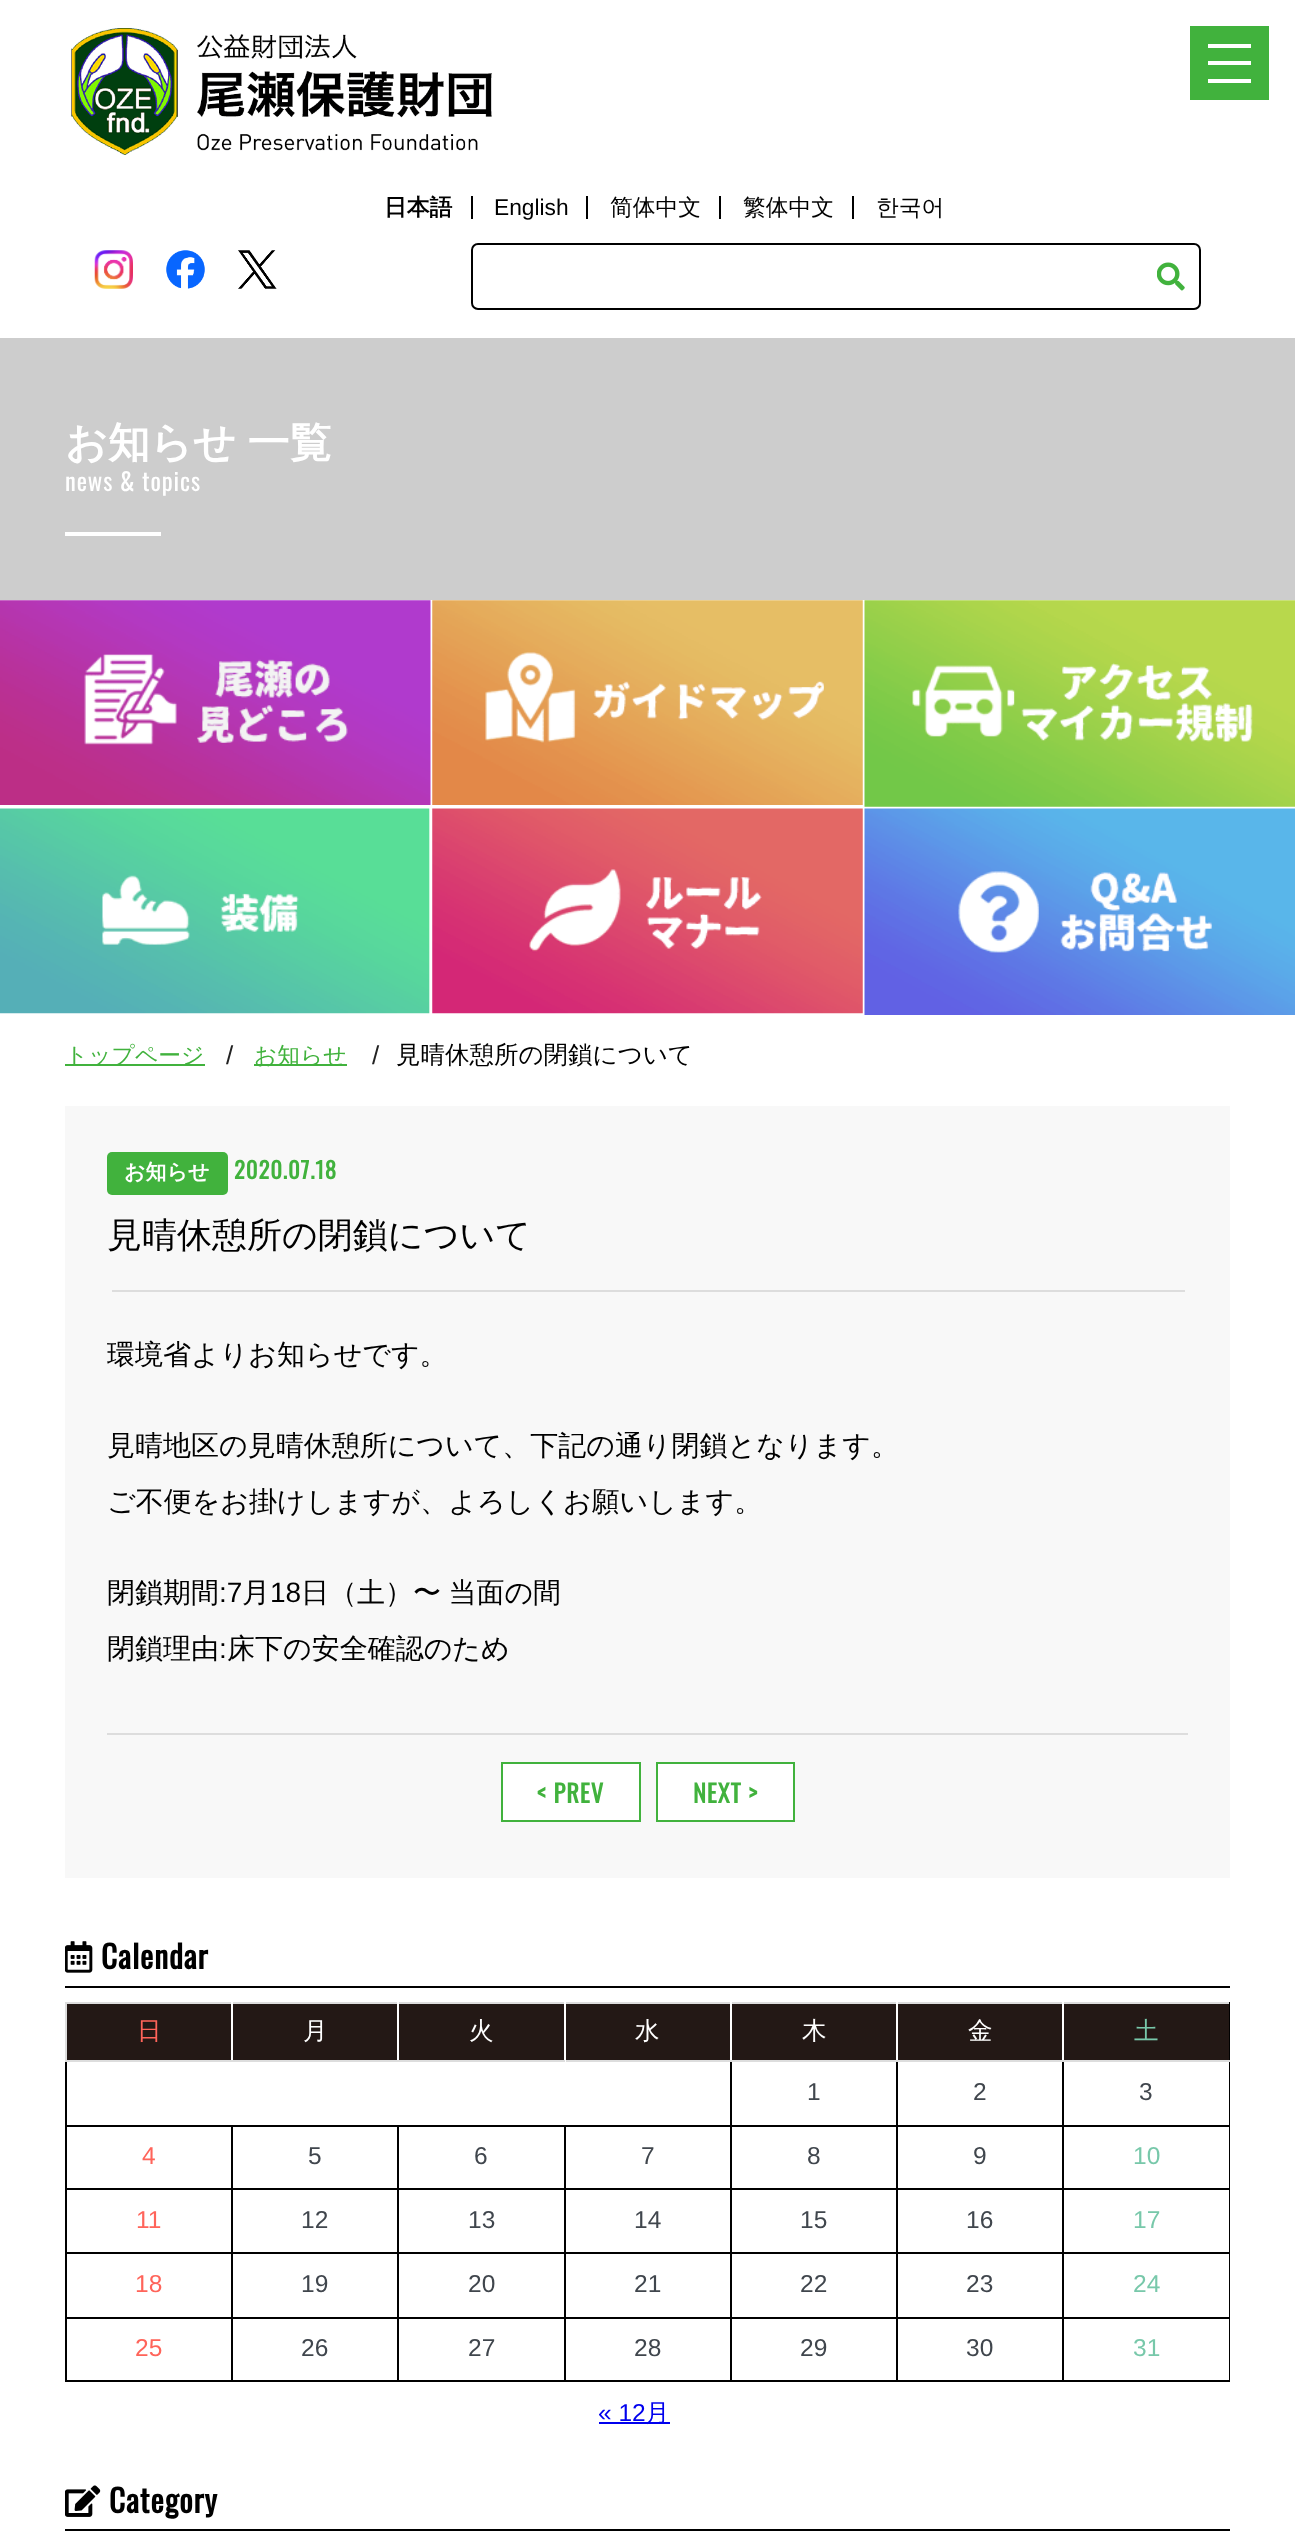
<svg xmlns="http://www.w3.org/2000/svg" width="1295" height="2540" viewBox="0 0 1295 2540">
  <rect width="100%" height="100%" fill="rgb(255,255,255)"/>
  <image x="71" y="28" width="421" height="127" href="pic1.png"/>
  <rect x="1190" y="26" width="79" height="74" fill="rgb(65,178,61)"/>
  <rect x="1208" y="61" width="43" height="4" fill="rgb(255,255,255)"/>
  <rect x="1208" y="44" width="43" height="4" fill="rgb(255,255,255)"/>
  <rect x="1208" y="79" width="43" height="4" fill="rgb(255,255,255)"/>
  <text x="384" y="215" font-family="WenQuanYi Zen Hei" font-size="22.75" font-weight="bold" fill="rgb(0,0,0)">日本語</text>
  <rect x="471" y="196" width="2" height="23" fill="rgb(0,0,0)"/>
  <text x="494" y="215" font-family="Liberation Sans" font-size="22.75" fill="rgb(0,0,0)">English</text>
  <rect x="586" y="196" width="2" height="23" fill="rgb(0,0,0)"/>
  <text x="610" y="215" font-family="WenQuanYi Zen Hei" font-size="22.75" font-weight="500" fill="rgb(0,0,0)">简体中文</text>
  <rect x="719" y="196" width="2" height="23" fill="rgb(0,0,0)"/>
  <text x="743" y="215" font-family="WenQuanYi Zen Hei" font-size="22.75" font-weight="500" fill="rgb(0,0,0)">繁体中文</text>
  <rect x="852" y="196" width="2" height="23" fill="rgb(0,0,0)"/>
  <text x="876" y="215" font-family="WenQuanYi Zen Hei" font-size="22.75" font-weight="500" fill="rgb(0,0,0)">한국어</text>
  <image x="94" y="250" width="39" height="39" href="pic2.png"/>
  <image x="166" y="250" width="39" height="39" href="pic3.png"/>
  <image x="238" y="250" width="39" height="39" href="pic4.png"/>
  <rect x="472" y="244" width="728" height="65" rx="6" fill="none" stroke="rgb(0,0,0)" stroke-width="2"/>
  <image x="1157" y="262" width="28" height="29" href="pic5.png"/>
  <rect x="0" y="338" width="1295" height="262" fill="rgb(205,205,205)"/>
  <text x="65" y="457" word-spacing="-1" font-family="WenQuanYi Zen Hei" font-size="42" font-weight="bold" fill="rgb(255,255,255)">お知らせ 一覧</text>
  <text x="65" y="491" font-family="Oswald" font-size="24.5" letter-spacing="0.9" fill="rgb(255,255,255)">news &amp; topics</text>
  <rect x="65" y="532" width="96" height="4" fill="rgb(255,255,255)"/>
  <image x="0" y="600" width="431" height="205" href="pic6.png"/>
  <image x="432" y="600" width="431" height="205" href="pic7.png"/>
  <image x="864" y="600" width="431" height="207" href="pic8.png"/>
  <image x="0" y="808" width="430" height="206" href="pic9.png"/>
  <image x="432" y="808" width="431" height="206" href="pic10.png"/>
  <image x="864" y="808" width="431" height="207" href="pic11.png"/>
  <rect x="65" y="1064" width="140" height="2" fill="rgb(65,178,61)"/>
  <text x="65" y="1063" font-family="WenQuanYi Zen Hei" font-size="22.75" font-weight="500" fill="rgb(65,178,61)">トップページ</text>
  <text x="226" y="1064" font-family="Liberation Sans" font-size="26" fill="rgb(34,34,34)">/</text>
  <rect x="254" y="1064" width="93" height="2" fill="rgb(65,178,61)"/>
  <text x="254" y="1063" font-family="WenQuanYi Zen Hei" font-size="22.75" font-weight="500" fill="rgb(65,178,61)">お知らせ</text>
  <text x="372" y="1064" font-family="Liberation Sans" font-size="26" fill="rgb(34,34,34)">/</text>
  <text x="396" y="1063" font-family="WenQuanYi Zen Hei" font-size="24.5" font-weight="500" fill="rgb(0,0,0)">見晴休憩所の閉鎖について</text>
  <rect x="65" y="1106" width="1165" height="772" fill="rgb(248,248,248)"/>
  <rect x="107" y="1152" width="121" height="43" rx="5" fill="rgb(65,178,61)"/>
  <text x="124" y="1179" font-family="WenQuanYi Zen Hei" font-size="21" font-weight="bold" fill="rgb(255,255,255)">お知らせ</text>
  <text x="234" y="1179" font-family="Oswald" font-size="22.75" font-weight="bold" letter-spacing="0.9" fill="rgb(65,178,61)">2020.07.18</text>
  <rect x="112" y="1290" width="1073" height="2" fill="rgb(221,221,221)"/>
  <text x="107" y="1247" font-family="WenQuanYi Zen Hei" font-size="35" font-weight="500" fill="rgb(0,0,0)">見晴休憩所の閉鎖について</text>
  <g font-family="WenQuanYi Zen Hei" font-size="28" font-weight="500" fill="rgb(0,0,0)">
    <text x="107" y="1364">環境省よりお知らせです。</text>
    <text x="107" y="1455">見晴地区の見晴休憩所について、下記の通り閉鎖となります。</text>
    <text x="107" y="1511">ご不便をお掛けしますが、よろしくお願いします。</text>
    <text x="107" y="1602">閉鎖期間</text>
  </g>
  <text x="219" y="1602" font-family="Liberation Sans" font-size="28" fill="rgb(0,0,0)">:7</text>
  <text x="242" y="1602" font-family="WenQuanYi Zen Hei" font-size="28" font-weight="500" fill="rgb(0,0,0)">月</text>
  <text x="270" y="1602" font-family="Liberation Sans" font-size="28" fill="rgb(0,0,0)">18</text>
  <g font-family="WenQuanYi Zen Hei" font-size="28" font-weight="500" fill="rgb(0,0,0)">
    <text x="301" y="1602" word-spacing="-1">日（土）〜 当面の間</text>
    <text x="107" y="1658">閉鎖理由</text>
  </g>
  <text x="219" y="1658" font-family="Liberation Sans" font-size="28" fill="rgb(0,0,0)">:</text>
  <text x="227" y="1658" font-family="WenQuanYi Zen Hei" font-size="28" font-weight="500" fill="rgb(0,0,0)">床下の安全確認のため</text>
  <rect x="107" y="1733" width="1081" height="2" fill="rgb(221,221,221)"/>
  <rect x="502" y="1763" width="138" height="58" fill="rgb(255,255,255)" stroke="rgb(65,178,61)" stroke-width="2"/>
  <text x="537" y="1803" font-family="Oswald" font-size="24.5" font-weight="bold" letter-spacing="0.9" fill="rgb(65,178,61)">&lt; PREV</text>
  <rect x="657" y="1763" width="137" height="58" fill="rgb(255,255,255)" stroke="rgb(65,178,61)" stroke-width="2"/>
  <text x="693" y="1803" font-family="Oswald" font-size="24.5" font-weight="bold" letter-spacing="0.9" fill="rgb(65,178,61)">NEXT &gt;</text>
  <rect x="65" y="1986" width="1165" height="2" fill="rgb(0,0,0)"/>
  <image x="65" y="1941" width="28" height="32" href="pic12.png"/>
  <text x="101" y="1969" font-family="Oswald" font-size="31.5" font-weight="bold" letter-spacing="0.9" fill="rgb(0,0,0)">Calendar</text>
  <rect x="67" y="2004" width="164" height="56" fill="rgb(35,24,21)"/>
  <rect x="65" y="2002" width="1165" height="2" fill="rgb(221,221,221)"/>
  <rect x="1062" y="2125" width="168" height="2" fill="rgb(0,0,0)"/>
  <rect x="1062" y="2188" width="168" height="2" fill="rgb(0,0,0)"/>
  <rect x="1062" y="2252" width="168" height="2" fill="rgb(0,0,0)"/>
  <rect x="1062" y="2317" width="168" height="2" fill="rgb(0,0,0)"/>
  <rect x="1229" y="2317" width="1" height="65" fill="rgb(0,0,0)"/>
  <rect x="1229" y="2252" width="1" height="67" fill="rgb(0,0,0)"/>
  <rect x="1229" y="2188" width="1" height="66" fill="rgb(0,0,0)"/>
  <rect x="1229" y="2060" width="1" height="129" fill="rgb(0,0,0)"/>
  <rect x="1229" y="2002" width="1" height="60" fill="rgb(0,0,0)"/>
  <rect x="1062" y="2380" width="168" height="2" fill="rgb(0,0,0)"/>
  <rect x="1062" y="2317" width="2" height="65" fill="rgb(0,0,0)"/>
  <rect x="896" y="2317" width="168" height="2" fill="rgb(0,0,0)"/>
  <rect x="1062" y="2252" width="2" height="67" fill="rgb(0,0,0)"/>
  <rect x="896" y="2252" width="168" height="2" fill="rgb(0,0,0)"/>
  <rect x="1062" y="2188" width="2" height="66" fill="rgb(0,0,0)"/>
  <rect x="896" y="2188" width="168" height="2" fill="rgb(0,0,0)"/>
  <rect x="1062" y="2125" width="2" height="64" fill="rgb(0,0,0)"/>
  <rect x="896" y="2125" width="168" height="2" fill="rgb(0,0,0)"/>
  <rect x="1062" y="2060" width="2" height="66" fill="rgb(0,0,0)"/>
  <rect x="1062" y="2060" width="168" height="2" fill="rgb(221,221,221)"/>
  <rect x="1062" y="2002" width="2" height="60" fill="rgb(255,255,255)"/>
  <rect x="896" y="2380" width="168" height="2" fill="rgb(0,0,0)"/>
  <rect x="896" y="2317" width="2" height="65" fill="rgb(0,0,0)"/>
  <rect x="730" y="2317" width="168" height="2" fill="rgb(0,0,0)"/>
  <rect x="896" y="2252" width="2" height="67" fill="rgb(0,0,0)"/>
  <rect x="730" y="2252" width="168" height="2" fill="rgb(0,0,0)"/>
  <rect x="896" y="2188" width="2" height="66" fill="rgb(0,0,0)"/>
  <rect x="730" y="2188" width="168" height="2" fill="rgb(0,0,0)"/>
  <rect x="896" y="2125" width="2" height="64" fill="rgb(0,0,0)"/>
  <rect x="730" y="2125" width="168" height="2" fill="rgb(0,0,0)"/>
  <rect x="896" y="2060" width="2" height="66" fill="rgb(0,0,0)"/>
  <rect x="896" y="2060" width="168" height="2" fill="rgb(221,221,221)"/>
  <rect x="896" y="2002" width="2" height="60" fill="rgb(255,255,255)"/>
  <rect x="730" y="2380" width="168" height="2" fill="rgb(0,0,0)"/>
  <rect x="730" y="2317" width="2" height="65" fill="rgb(0,0,0)"/>
  <rect x="564" y="2317" width="168" height="2" fill="rgb(0,0,0)"/>
  <rect x="730" y="2252" width="2" height="67" fill="rgb(0,0,0)"/>
  <rect x="564" y="2252" width="168" height="2" fill="rgb(0,0,0)"/>
  <rect x="730" y="2188" width="2" height="66" fill="rgb(0,0,0)"/>
  <rect x="564" y="2188" width="168" height="2" fill="rgb(0,0,0)"/>
  <rect x="730" y="2125" width="2" height="64" fill="rgb(0,0,0)"/>
  <rect x="564" y="2125" width="168" height="2" fill="rgb(0,0,0)"/>
  <rect x="730" y="2060" width="2" height="66" fill="rgb(0,0,0)"/>
  <rect x="730" y="2060" width="168" height="2" fill="rgb(221,221,221)"/>
  <rect x="730" y="2002" width="2" height="60" fill="rgb(255,255,255)"/>
  <rect x="564" y="2060" width="168" height="2" fill="rgb(221,221,221)"/>
  <rect x="564" y="2002" width="2" height="60" fill="rgb(255,255,255)"/>
  <rect x="397" y="2060" width="168" height="2" fill="rgb(221,221,221)"/>
  <rect x="397" y="2002" width="2" height="60" fill="rgb(255,255,255)"/>
  <rect x="231" y="2060" width="168" height="2" fill="rgb(221,221,221)"/>
  <rect x="231" y="2002" width="2" height="60" fill="rgb(255,255,255)"/>
  <rect x="564" y="2380" width="168" height="2" fill="rgb(0,0,0)"/>
  <rect x="564" y="2317" width="2" height="65" fill="rgb(0,0,0)"/>
  <rect x="397" y="2317" width="168" height="2" fill="rgb(0,0,0)"/>
  <rect x="564" y="2252" width="2" height="67" fill="rgb(0,0,0)"/>
  <rect x="397" y="2252" width="168" height="2" fill="rgb(0,0,0)"/>
  <rect x="564" y="2188" width="2" height="66" fill="rgb(0,0,0)"/>
  <rect x="397" y="2188" width="168" height="2" fill="rgb(0,0,0)"/>
  <rect x="564" y="2125" width="2" height="64" fill="rgb(0,0,0)"/>
  <rect x="397" y="2125" width="168" height="2" fill="rgb(0,0,0)"/>
  <rect x="397" y="2380" width="168" height="2" fill="rgb(0,0,0)"/>
  <rect x="397" y="2317" width="2" height="65" fill="rgb(0,0,0)"/>
  <rect x="231" y="2317" width="168" height="2" fill="rgb(0,0,0)"/>
  <rect x="397" y="2252" width="2" height="67" fill="rgb(0,0,0)"/>
  <rect x="231" y="2252" width="168" height="2" fill="rgb(0,0,0)"/>
  <rect x="397" y="2188" width="2" height="66" fill="rgb(0,0,0)"/>
  <rect x="231" y="2188" width="168" height="2" fill="rgb(0,0,0)"/>
  <rect x="397" y="2125" width="2" height="64" fill="rgb(0,0,0)"/>
  <rect x="231" y="2125" width="168" height="2" fill="rgb(0,0,0)"/>
  <rect x="231" y="2380" width="168" height="2" fill="rgb(0,0,0)"/>
  <rect x="231" y="2317" width="2" height="65" fill="rgb(0,0,0)"/>
  <rect x="65" y="2317" width="168" height="2" fill="rgb(0,0,0)"/>
  <rect x="231" y="2252" width="2" height="67" fill="rgb(0,0,0)"/>
  <rect x="65" y="2252" width="168" height="2" fill="rgb(0,0,0)"/>
  <rect x="231" y="2188" width="2" height="66" fill="rgb(0,0,0)"/>
  <rect x="65" y="2188" width="168" height="2" fill="rgb(0,0,0)"/>
  <rect x="231" y="2125" width="2" height="64" fill="rgb(0,0,0)"/>
  <rect x="65" y="2125" width="168" height="2" fill="rgb(0,0,0)"/>
  <rect x="65" y="2380" width="168" height="2" fill="rgb(0,0,0)"/>
  <rect x="65" y="2317" width="2" height="65" fill="rgb(0,0,0)"/>
  <rect x="65" y="2252" width="2" height="67" fill="rgb(0,0,0)"/>
  <rect x="65" y="2188" width="2" height="66" fill="rgb(0,0,0)"/>
  <rect x="65" y="2060" width="2" height="129" fill="rgb(0,0,0)"/>
  <rect x="65" y="2060" width="168" height="2" fill="rgb(221,221,221)"/>
  <rect x="65" y="2002" width="2" height="60" fill="rgb(221,221,221)"/>
  <text x="137" y="2039" font-family="WenQuanYi Zen Hei" font-size="24.5" font-weight="500" fill="rgb(255,100,90)">日</text>
  <rect x="233" y="2004" width="164" height="56" fill="rgb(35,24,21)"/>
  <text x="303" y="2039" font-family="WenQuanYi Zen Hei" font-size="24.5" font-weight="500" fill="rgb(255,255,255)">月</text>
  <rect x="399" y="2004" width="165" height="56" fill="rgb(35,24,21)"/>
  <text x="469" y="2039" font-family="WenQuanYi Zen Hei" font-size="24.5" font-weight="500" fill="rgb(255,255,255)">火</text>
  <rect x="566" y="2004" width="164" height="56" fill="rgb(35,24,21)"/>
  <text x="635" y="2039" font-family="WenQuanYi Zen Hei" font-size="24.5" font-weight="500" fill="rgb(255,255,255)">水</text>
  <rect x="732" y="2004" width="164" height="56" fill="rgb(35,24,21)"/>
  <text x="802" y="2039" font-family="WenQuanYi Zen Hei" font-size="24.5" font-weight="500" fill="rgb(255,255,255)">木</text>
  <rect x="898" y="2004" width="164" height="56" fill="rgb(35,24,21)"/>
  <text x="968" y="2039" font-family="WenQuanYi Zen Hei" font-size="24.5" font-weight="500" fill="rgb(255,255,255)">金</text>
  <rect x="1064" y="2004" width="165" height="56" fill="rgb(35,24,21)"/>
  <text x="1134" y="2039" font-family="WenQuanYi Zen Hei" font-size="24.5" font-weight="500" fill="rgb(120,200,170)">土</text>
  <g font-family="Liberation Sans" font-size="24.5" fill="rgb(64,70,77)">
    <text x="807" y="2100">1</text>
    <text x="973" y="2100">2</text>
    <text x="1139" y="2100">3</text>
  </g>
  <text x="142" y="2164" font-family="Liberation Sans" font-size="24.5" fill="rgb(255,100,90)">4</text>
  <g font-family="Liberation Sans" font-size="24.5" fill="rgb(64,70,77)">
    <text x="308" y="2164">5</text>
    <text x="474" y="2164">6</text>
    <text x="641" y="2164">7</text>
    <text x="807" y="2164">8</text>
    <text x="973" y="2164">9</text>
  </g>
  <text x="1133" y="2164" font-family="Liberation Sans" font-size="24.5" fill="rgb(120,200,170)">10</text>
  <text x="136" y="2228" font-family="Liberation Sans" font-size="24.5" fill="rgb(255,100,90)">11</text>
  <g font-family="Liberation Sans" font-size="24.5" fill="rgb(64,70,77)">
    <text x="301" y="2228">12</text>
    <text x="468" y="2228">13</text>
    <text x="634" y="2228">14</text>
    <text x="800" y="2228">15</text>
    <text x="966" y="2228">16</text>
  </g>
  <text x="1133" y="2228" font-family="Liberation Sans" font-size="24.5" fill="rgb(120,200,170)">17</text>
  <text x="135" y="2292" font-family="Liberation Sans" font-size="24.5" fill="rgb(255,100,90)">18</text>
  <g font-family="Liberation Sans" font-size="24.5" fill="rgb(64,70,77)">
    <text x="301" y="2292">19</text>
    <text x="468" y="2292">20</text>
    <text x="634" y="2292">21</text>
    <text x="800" y="2292">22</text>
    <text x="966" y="2292">23</text>
  </g>
  <text x="1133" y="2292" font-family="Liberation Sans" font-size="24.5" fill="rgb(120,200,170)">24</text>
  <text x="135" y="2356" font-family="Liberation Sans" font-size="24.5" fill="rgb(255,100,90)">25</text>
  <g font-family="Liberation Sans" font-size="24.5" fill="rgb(64,70,77)">
    <text x="301" y="2356">26</text>
    <text x="468" y="2356">27</text>
    <text x="634" y="2356">28</text>
    <text x="800" y="2356">29</text>
    <text x="966" y="2356">30</text>
  </g>
  <text x="1133" y="2356" font-family="Liberation Sans" font-size="24.5" fill="rgb(120,200,170)">31</text>
  <text x="598" y="2421" font-family="Liberation Sans" font-size="24.5" fill="rgb(0,0,238)">« 12</text>
  <rect x="599" y="2422" width="71" height="2" fill="rgb(0,0,238)"/>
  <text x="645" y="2421" font-family="WenQuanYi Zen Hei" font-size="24.5" font-weight="500" fill="rgb(0,0,238)">月</text>
  <rect x="65" y="2529" width="1165" height="2" fill="rgb(0,0,0)"/>
  <image x="65" y="2485" width="36" height="32" href="pic13.png"/>
  <text x="109" y="2513" font-family="Oswald" font-size="31.5" font-weight="bold" letter-spacing="0.9" fill="rgb(0,0,0)">Category</text>
</svg>
